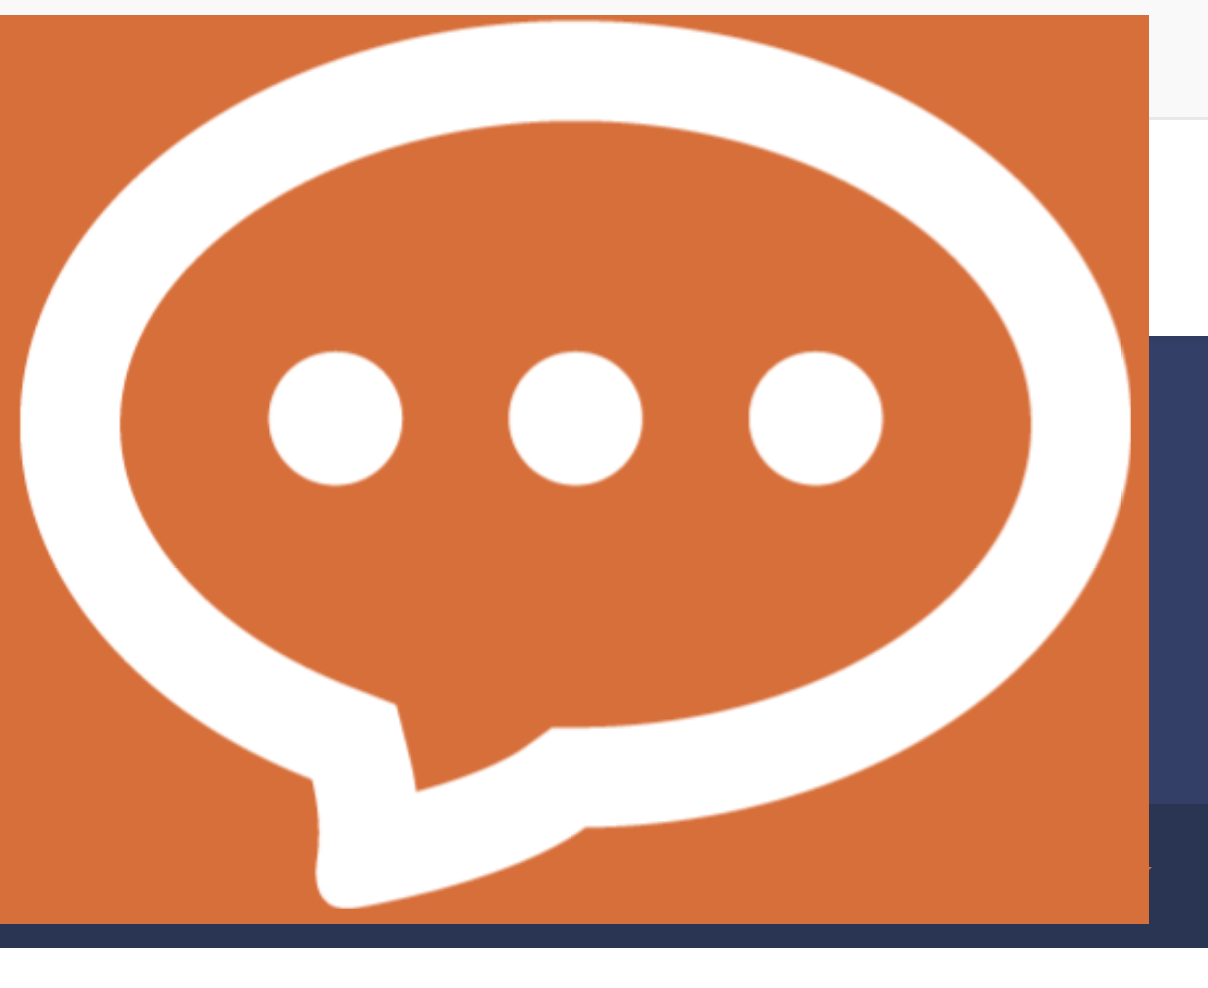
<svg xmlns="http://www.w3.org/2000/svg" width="1208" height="988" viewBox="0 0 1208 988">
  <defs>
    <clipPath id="clip1"><rect x="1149" y="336" width="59" height="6"/></clipPath>
  </defs>
  <rect width="100%" height="100%" fill="rgb(255,255,255)"/>
  <rect x="0" y="0" width="1208" height="117" fill="rgb(249,249,249)"/>
  <rect x="1149" y="117" width="59" height="3" fill="rgb(232,232,232)"/>
  <rect x="1149" y="336" width="59" height="468" fill="rgb(51,63,103)"/>
  <g clip-path="url(#clip1)">
    <rect x="0" y="123" width="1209" height="216" fill="rgba(29,36,61,0.16)" filter="blur(3px)"/>
  </g>
  <rect x="0" y="804" width="1208" height="144" fill="rgb(42,52,83)"/>
  <path d="M1122 867H1152L1137 882Z" fill="rgb(215,111,58)"/>
  <rect x="0" y="15" width="1149" height="909" fill="rgb(215,111,58)"/>
  <image x="19" y="18" width="1112" height="891" href="pic1.png"/>
</svg>
